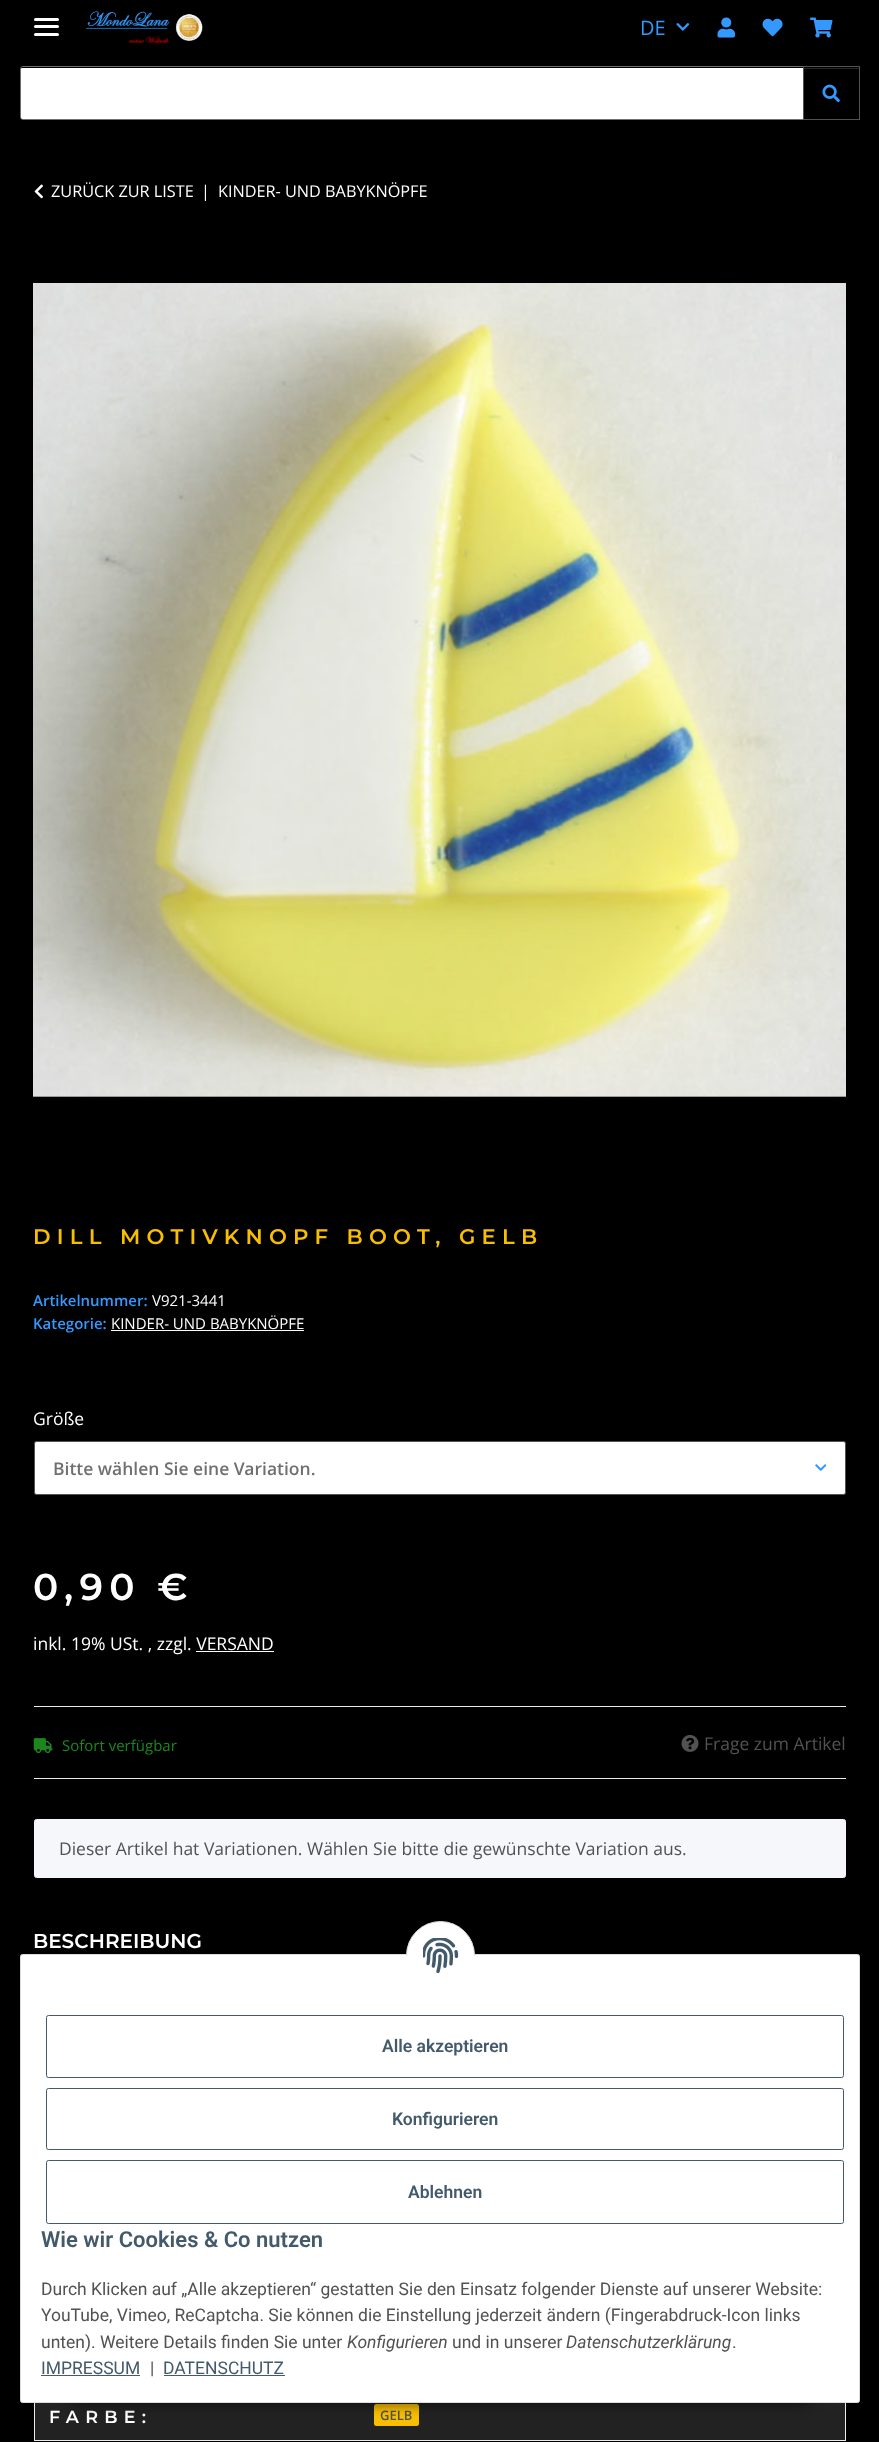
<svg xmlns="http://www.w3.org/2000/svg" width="879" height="2442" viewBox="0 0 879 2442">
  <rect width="100%" height="100%" fill="rgb(0,0,0)"/>
  <rect x="34" y="25" width="25" height="3" rx="1.5" fill="rgb(255,255,255)"/>
  <rect x="34" y="18" width="25" height="3" rx="1.5" fill="rgb(255,255,255)"/>
  <rect x="34" y="33" width="25" height="3" rx="1.5" fill="rgb(255,255,255)"/>
  <image x="86" y="11" width="117" height="33" href="pic1.png"/>
  <text x="640" y="35" font-family="Open Sans" font-size="20" fill="rgb(51,153,255)">DE</text>
  <image x="676" y="23" width="14" height="8" href="pic2.png"/>
  <image x="717" y="17" width="18" height="21" href="pic3.png"/>
  <image x="762" y="18" width="21" height="19" href="pic4.png"/>
  <image x="810" y="17" width="23" height="21" href="pic5.png"/>
  <path d="M22 68H803V119H22C21.5 119 21 118.5 21 118V69C21 68.5 21.5 68 22 68Z" fill="rgb(255,255,255)"/>
  <path d="M22.5 66.5H803.5V119.5H22.5C21.5 119.5 20.5 118.5 20.5 117.5V68.5C20.5 67.5 21.5 66.5 22.5 66.5Z" fill="none" stroke="rgb(112,112,112)"/>
  <rect x="804" y="68" width="55" height="1" fill="rgb(38,38,38)"/>
  <rect x="803.5" y="66.5" width="56" height="53" fill="none" stroke="rgb(82,82,82)"/>
  <image x="822" y="84" width="18" height="19" href="pic6.png"/>
  <image x="34" y="184" width="9" height="15" href="pic7.png"/>
  <g font-family="Open Sans" font-size="16.25" fill="rgb(255,255,255)">
    <text x="51" y="197">ZURÜCK ZUR LISTE</text>
    <text x="201" y="197">|</text>
    <text x="218" y="197">KINDER- UND BABYKNÖPFE</text>
  </g>
  <image x="33" y="283" width="813" height="814" href="pic8.png"/>
  <text x="33" y="1244" font-family="Montserrat" font-size="21.25" font-weight="600" letter-spacing="6.25" fill="rgb(248,191,0)">DILL MOTIVKNOPF BOOT, GELB</text>
  <text x="33" y="1306" font-family="Open Sans" font-size="15" font-weight="600" fill="rgb(51,153,255)">Artikelnummer:</text>
  <text x="152" y="1306" font-family="Open Sans" font-size="15" fill="rgb(255,255,255)">V921-3441</text>
  <text x="33" y="1329" font-family="Open Sans" font-size="15" font-weight="600" fill="rgb(51,153,255)">Kategorie:</text>
  <text x="111" y="1329" font-family="Open Sans" font-size="15" fill="rgb(255,255,255)">KINDER- UND BABYKNÖPFE</text>
  <rect x="111" y="1330" width="193" height="1" fill="rgb(255,255,255)"/>
  <text x="33" y="1425" font-family="Open Sans" font-size="17.5" fill="rgb(255,255,255)">Größe</text>
  <rect x="34.5" y="1441.5" width="811" height="53" rx="2" fill="rgb(255,255,255)" stroke="rgb(82,82,82)"/>
  <text x="53" y="1475" font-family="Open Sans" font-size="17.5" font-weight="600" fill="rgb(112,112,112)">Bitte wählen Sie eine Variation.</text>
  <image x="815" y="1464" width="12" height="7" href="pic9.png"/>
  <text x="33" y="1600" font-family="Montserrat" font-size="37.5" font-weight="600" letter-spacing="6.25" fill="rgb(255,255,255)">0,90 €</text>
  <text x="33" y="1650" font-family="Open Sans" font-size="17.5" fill="rgb(255,255,255)">inkl. 19% USt. , zzgl. VERSAND</text>
  <rect x="196" y="1651" width="78" height="1" fill="rgb(255,255,255)"/>
  <rect x="34" y="1706" width="812" height="1" fill="rgb(235,235,235)"/>
  <rect x="34" y="1778" width="812" height="1" fill="rgb(235,235,235)"/>
  <image x="33" y="1738" width="20" height="16" href="pic10.png"/>
  <text x="62" y="1751" font-family="Open Sans" font-size="15" fill="rgb(28,135,30)">Sofort verfügbar</text>
  <image x="681" y="1735" width="18" height="17" href="pic11.png"/>
  <text x="704" y="1750" font-family="Open Sans" font-size="17.5" fill="rgb(82,82,82)">Frage zum Artikel</text>
  <rect x="34.5" y="1819.5" width="811" height="58" rx="2" fill="rgb(245,247,250)" stroke="rgb(245,247,250)"/>
  <text x="59" y="1855" font-family="Open Sans" font-size="17.5" fill="rgb(82,82,82)">Dieser Artikel hat Variationen. Wählen Sie bitte die gewünschte Variation aus.</text>
  <text x="33" y="1948" font-family="Montserrat" font-size="20" font-weight="600" fill="rgb(255,255,255)">BESCHREIBUNG</text>
  <rect x="35" y="2403" width="810" height="37" fill="rgb(34,34,34)"/>
  <rect x="845" y="2403" width="1" height="38" fill="rgb(235,235,235)"/>
  <rect x="34" y="2440" width="812" height="1" fill="rgb(235,235,235)"/>
  <rect x="34" y="2403" width="1" height="38" fill="rgb(235,235,235)"/>
  <text x="49" y="2423" font-family="Montserrat" font-size="17.5" font-weight="600" letter-spacing="6.25" fill="rgb(255,255,255)">FARBE:</text>
  <rect x="374" y="2404" width="45" height="22" rx="2.5" fill="rgb(248,191,0)"/>
  <text x="380" y="2420" font-family="Open Sans" font-size="13" font-weight="600" fill="rgb(82,82,82)">GELB</text>
  <rect x="64" y="2366" width="754" height="40" rx="20" fill="rgba(0,0,0,0.45)" filter="blur(6px)"/>
  <rect x="20.5" y="1954.5" width="839" height="448" rx="2" fill="rgb(255,255,255)" stroke="rgb(221,221,221)"/>
  <circle cx="440.5" cy="1955.5" r="34" fill="rgb(255,255,255)" stroke="rgb(221,221,221)"/>
  <rect x="406" y="1956" width="69" height="34" fill="rgb(255,255,255)"/>
  <image x="423" y="1938" width="36" height="36" href="pic12.png"/>
  <rect x="46.5" y="2015.5" width="797" height="62" rx="2" fill="none" stroke="rgb(67,90,107)"/>
  <text x="382" y="2052" font-family="Roboto" font-size="17.5" font-weight="600" fill="rgb(67,90,107)">Alle akzeptieren</text>
  <rect x="46.5" y="2088.5" width="797" height="61" rx="2" fill="none" stroke="rgb(67,90,107)"/>
  <text x="392" y="2125" font-family="Roboto" font-size="17.5" font-weight="600" fill="rgb(67,90,107)">Konfigurieren</text>
  <rect x="46.5" y="2160.5" width="797" height="63" rx="2" fill="none" stroke="rgb(67,90,107)"/>
  <text x="408" y="2198" font-family="Roboto" font-size="17.5" font-weight="600" fill="rgb(67,90,107)">Ablehnen</text>
  <text x="41" y="2247" font-family="Roboto" font-size="22" font-weight="600" fill="rgb(67,90,107)">Wie wir Cookies &amp; Co nutzen</text>
  <g font-family="Roboto" font-size="17.5" fill="rgb(82,82,82)">
    <text>
      <tspan x="41" y="2295">Durch Klicken auf „Alle akzeptieren“ gestatten Sie den Einsatz folgender Dienste auf unserer Website:</tspan>
      <tspan x="41" y="2321">YouTube, Vimeo, ReCaptcha. Sie können die Einstellung jederzeit ändern (Fingerabdruck-Icon links</tspan>
      <tspan x="41" y="2348">unten). Weitere Details finden Sie unter</tspan>
    </text>
  </g>
  <text x="347" y="2348" font-family="Roboto" font-size="17.5" font-style="italic" fill="rgb(82,82,82)">Konfigurieren</text>
  <text x="452" y="2348" font-family="Roboto" font-size="17.5" fill="rgb(82,82,82)">und in unserer</text>
  <text x="566" y="2348" font-family="Roboto" font-size="17.5" font-style="italic" fill="rgb(82,82,82)">Datenschutzerklärung</text>
  <text x="732" y="2348" font-family="Roboto" font-size="17.5" fill="rgb(82,82,82)">.</text>
  <text x="41" y="2374" font-family="Roboto" font-size="17.5" fill="rgb(67,90,107)">IMPRESSUM</text>
  <rect x="41" y="2375" width="99" height="1" fill="rgb(67,90,107)"/>
  <text x="150" y="2374" font-family="Roboto" font-size="17.5" fill="rgb(82,82,82)">|</text>
  <text x="163" y="2374" font-family="Roboto" font-size="17.5" fill="rgb(67,90,107)">DATENSCHUTZ</text>
  <rect x="164" y="2375" width="121" height="1" fill="rgb(67,90,107)"/>
</svg>
